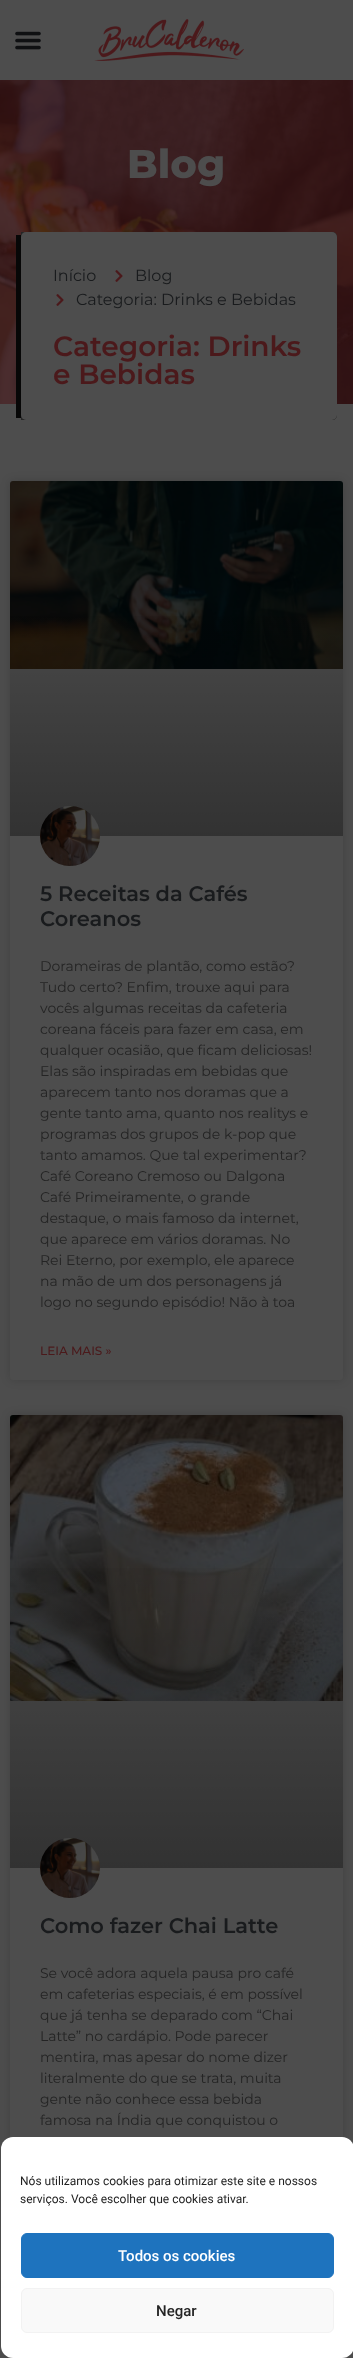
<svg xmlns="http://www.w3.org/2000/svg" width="353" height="2358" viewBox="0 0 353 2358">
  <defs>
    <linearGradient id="g1" gradientUnits="userSpaceOnUse" x1="177" y1="836" x2="177" y2="481"><stop offset="0" stop-color="rgb(0,0,0)" stop-opacity="0.35"/><stop offset="0.75" stop-color="rgb(0,0,0)" stop-opacity="0"/></linearGradient>
    <linearGradient id="g2" gradientUnits="userSpaceOnUse" x1="177" y1="1868" x2="177" y2="1415"><stop offset="0" stop-color="rgb(0,0,0)" stop-opacity="0.35"/><stop offset="0.75" stop-color="rgb(0,0,0)" stop-opacity="0"/></linearGradient>
  </defs>
  <rect width="100%" height="100%" fill="rgb(77,77,77)"/>
  <image x="15" y="31" width="26" height="19" href="pic1.png"/>
  <image x="94" y="19" width="150" height="42" href="pic2.png"/>
  <rect x="0" y="80" width="353" height="324" fill="rgb(75,25,27)"/>
  <image x="0" y="80" width="353" height="324" href="pic3.png"/>
  <text x="127" y="178" font-family="Montserrat" font-size="40" font-weight="800" fill="rgb(77,77,77)">Blog</text>
  <path d="M21 232H332C335 232 337 234 337 237V415C337 418 335 420 332 420H21Z" fill="rgb(37,37,37)"/>
  <rect x="16" y="235" width="5" height="183" fill="rgb(7,7,7)"/>
  <rect x="21" y="232" width="316" height="188" rx="5" fill="rgb(77,77,77)"/>
  <text x="53" y="281" font-family="Montserrat" font-size="16" fill="rgb(25,27,29)">Início</text>
  <image x="115" y="270" width="8" height="12" href="pic4.png"/>
  <text x="135" y="281" font-family="Montserrat" font-size="16" fill="rgb(25,27,29)">Blog</text>
  <image x="56" y="294" width="8" height="12" href="pic4.png"/>
  <text x="76" y="305" font-family="Montserrat" font-size="16" fill="rgb(25,27,29)">Categoria: Drinks e Bebidas</text>
  <g font-family="Montserrat" font-size="28" font-weight="600" fill="rgb(75,25,27)">
    <text>
      <tspan x="53" y="356">Categoria: Drinks</tspan>
      <tspan x="53" y="384">e Bebidas</tspan>
    </text>
  </g>
  <rect x="10" y="481" width="333" height="899" rx="3" fill="rgba(0,0,0,0.15)" filter="blur(5px)"/>
  <rect x="10" y="481" width="333" height="899" rx="3" fill="rgb(77,77,77)"/>
  <image x="10" y="481" width="333" height="188" href="pic5.png"/>
  <rect x="10" y="616" width="333" height="220" fill="url(#g1)"/>
  <image x="40" y="806" width="60" height="60" href="pic6.png"/>
  <g font-family="Montserrat" font-size="21" font-weight="600" fill="rgb(25,27,29)">
    <text>
      <tspan x="40" y="901">5 Receitas da Cafés</tspan>
      <tspan x="40" y="926">Coreanos</tspan>
    </text>
  </g>
  <g font-family="Montserrat" font-size="14" fill="rgb(36,36,36)">
    <text>
      <tspan x="40" y="971">Dorameiras de plantão, como estão?</tspan>
      <tspan x="40" y="992">Tudo certo? Enfim, trouxe aqui para</tspan>
      <tspan x="40" y="1013">vocês algumas receitas da cafeteria</tspan>
      <tspan x="40" y="1034">coreana fáceis para fazer em casa, em</tspan>
      <tspan x="40" y="1055">qualquer ocasião, que ficam deliciosas!</tspan>
      <tspan x="40" y="1076">Elas são inspiradas em bebidas que</tspan>
      <tspan x="40" y="1097">aparecem tanto nos doramas que a</tspan>
      <tspan x="40" y="1118">gente tanto ama, quanto nos realitys e</tspan>
      <tspan x="40" y="1139">programas dos grupos de k-pop que</tspan>
      <tspan x="40" y="1160">tanto amamos. Que tal experimentar?</tspan>
      <tspan x="40" y="1181">Café Coreano Cremoso ou Dalgona</tspan>
      <tspan x="40" y="1202">Café Primeiramente, o grande</tspan>
      <tspan x="40" y="1223">destaque, o mais famoso da internet,</tspan>
      <tspan x="40" y="1244">que aparece em vários doramas. No</tspan>
      <tspan x="40" y="1265">Rei Eterno, por exemplo, ele aparece</tspan>
      <tspan x="40" y="1286">na mão de um dos personagens já</tspan>
      <tspan x="40" y="1307">logo no segundo episódio! Não à toa</tspan>
    </text>
  </g>
  <text x="40" y="1355" font-family="Montserrat" font-size="12" font-weight="500" fill="rgb(75,25,27)">LEIA MAIS »</text>
  <rect x="10" y="1415" width="333" height="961" rx="3" fill="rgba(0,0,0,0.15)" filter="blur(5px)"/>
  <rect x="10" y="1415" width="333" height="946" rx="3" fill="rgb(77,77,77)"/>
  <image x="10" y="1415" width="333" height="286" href="pic7.png"/>
  <rect x="10" y="1568" width="333" height="300" fill="url(#g2)"/>
  <image x="40" y="1838" width="60" height="60" href="pic8.png"/>
  <text x="40" y="1933" font-family="Montserrat" font-size="21" font-weight="600" fill="rgb(25,27,29)">Como fazer Chai Latte</text>
  <g font-family="Montserrat" font-size="14" fill="rgb(36,36,36)">
    <text>
      <tspan x="40" y="1978">Se você adora aquela pausa pro café</tspan>
      <tspan x="40" y="1999">em cafeterias especiais, é em possível</tspan>
      <tspan x="40" y="2020">que já tenha se deparado com “Chai</tspan>
      <tspan x="40" y="2041">Latte” no cardápio. Pode parecer</tspan>
      <tspan x="40" y="2062">mentira, mas apesar do nome dizer</tspan>
      <tspan x="40" y="2083">literalmente do que se trata, muita</tspan>
      <tspan x="40" y="2104">gente não conhece essa bebida</tspan>
      <tspan x="40" y="2125">famosa na Índia que conquistou o</tspan>
    </text>
  </g>
  <rect x="1" y="2137" width="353" height="221" rx="12" fill="rgb(255,255,255)"/>
  <g font-family="Roboto" font-size="12" fill="rgb(36,36,36)">
    <text>
      <tspan x="20" y="2185">Nós utilizamos cookies para otimizar este site e nossos</tspan>
      <tspan x="20" y="2203">serviços. Você escolher que cookies ativar.</tspan>
    </text>
  </g>
  <rect x="21.5" y="2233.5" width="312" height="44" rx="5.5" fill="rgb(30,115,190)" stroke="rgb(30,115,190)"/>
  <text x="118" y="2261" font-family="Roboto" font-size="15" font-weight="500" fill="rgb(255,255,255)">Todos os cookies</text>
  <rect x="21.5" y="2288.5" width="312" height="44" rx="5.5" fill="rgb(249,249,249)" stroke="rgb(242,242,242)"/>
  <text x="156" y="2316" font-family="Roboto" font-size="15" font-weight="500" fill="rgb(36,36,36)">Negar</text>
</svg>
